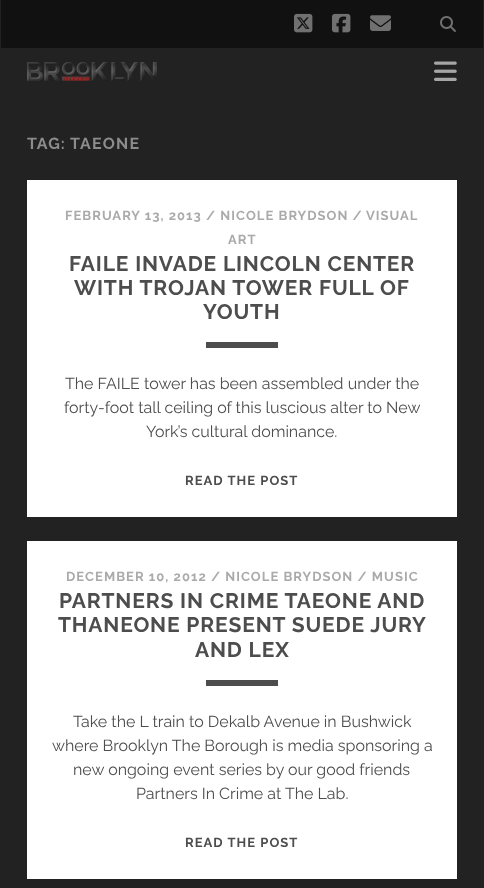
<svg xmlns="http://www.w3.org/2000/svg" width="484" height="888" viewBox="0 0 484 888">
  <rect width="100%" height="100%" fill="rgb(34,34,34)"/>
  <rect x="1" y="0" width="482" height="48" fill="rgb(17,17,17)"/>
  <image x="294" y="13" width="19" height="20" href="pic1.png"/>
  <image x="332" y="13" width="19" height="20" href="pic2.png"/>
  <image x="370" y="15" width="21" height="16" href="pic3.png"/>
  <image x="440" y="16" width="16" height="16" href="pic4.png"/>
  <image x="27" y="62" width="130" height="19" href="pic5.png"/>
  <image x="434" y="61" width="23" height="20" href="pic6.png"/>
  <text x="27" y="149" font-family="Raleway" font-size="16" font-weight="bold" letter-spacing="1" fill="rgb(140,140,140)">TAG:</text>
  <text x="70" y="149" font-family="Raleway" font-size="16" font-weight="bold" letter-spacing="1.25" fill="rgb(140,140,140)">TAEONE</text>
  <rect x="27" y="180" width="430" height="337" fill="rgb(255,255,255)"/>
  <g font-family="Raleway" font-size="13" font-weight="bold" letter-spacing="1.05" fill="rgb(170,170,170)">
    <text x="65" y="220">FEBRUARY 13, 2013 / NICOLE BRYDSON /</text>
    <text x="366" y="220">VISUAL</text>
    <text x="228" y="244">ART</text>
  </g>
  <g font-family="Raleway" font-size="21" font-weight="bold" letter-spacing="0.85" fill="rgb(77,77,77)">
    <text x="69" y="271">FAILE INVADE LINCOLN CENTER</text>
    <text x="74" y="295">WITH TROJAN TOWER FULL OF</text>
    <text x="203" y="319">YOUTH</text>
  </g>
  <rect x="206" y="342" width="72" height="6" fill="rgb(77,77,77)"/>
  <g font-family="Raleway" font-size="16" fill="rgb(77,77,77)">
    <text x="65" y="389">The FAILE tower has been assembled under the</text>
    <text x="64" y="413">forty-foot tall ceiling of this luscious alter to New</text>
    <text x="146" y="437">York’s cultural dominance.</text>
  </g>
  <text x="185" y="485" font-family="Raleway" font-size="13" font-weight="bold" letter-spacing="1.05" fill="rgb(77,77,77)">READ THE POST</text>
  <rect x="27" y="541" width="430" height="338" fill="rgb(255,255,255)"/>
  <text x="66" y="581" font-family="Raleway" font-size="13" font-weight="bold" letter-spacing="1.05" fill="rgb(170,170,170)">DECEMBER 10, 2012 / NICOLE BRYDSON / MUSIC</text>
  <g font-family="Raleway" font-size="21" font-weight="bold" letter-spacing="0.85" fill="rgb(77,77,77)">
    <text x="59" y="608">PARTNERS IN CRIME TAEONE AND</text>
    <text x="58" y="632">THANEONE PRESENT SUEDE JURY</text>
    <text x="195" y="657">AND LEX</text>
  </g>
  <rect x="206" y="680" width="72" height="6" fill="rgb(77,77,77)"/>
  <g font-family="Raleway" font-size="16" fill="rgb(77,77,77)">
    <text x="73" y="727">Take the L train to Dekalb Avenue in Bushwick</text>
    <text x="52" y="751">where Brooklyn The Borough is media sponsoring a</text>
    <text x="73" y="775">new ongoing event series by our good friends</text>
    <text x="136" y="799">Partners In Crime at The Lab.</text>
  </g>
  <text x="185" y="847" font-family="Raleway" font-size="13" font-weight="bold" letter-spacing="1.05" fill="rgb(77,77,77)">READ THE POST</text>
</svg>
